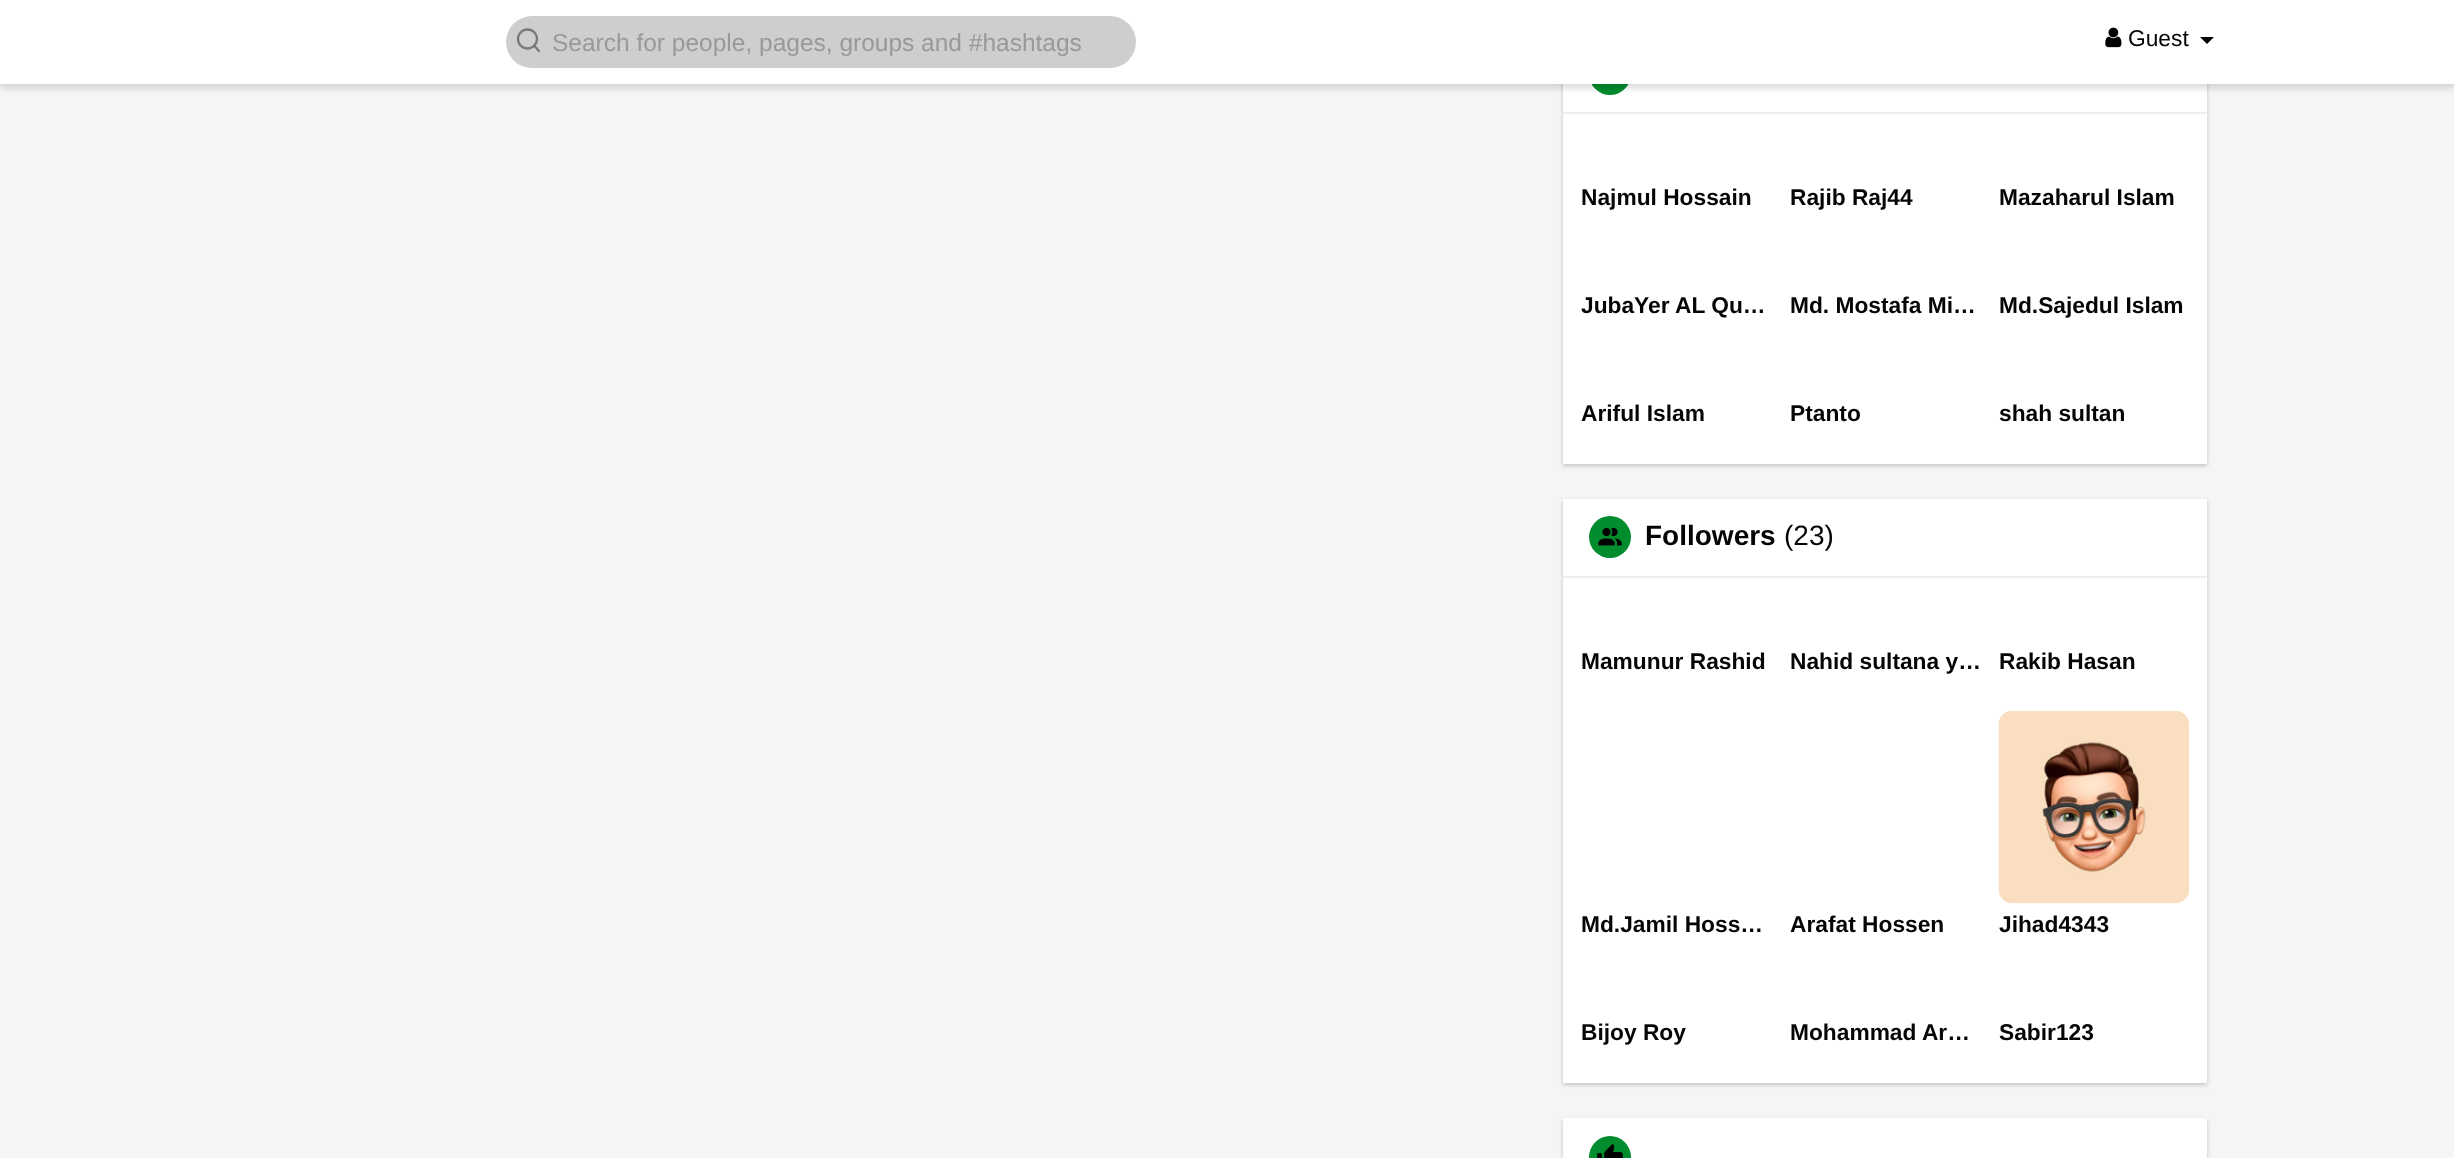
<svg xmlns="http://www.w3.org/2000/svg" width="2454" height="1158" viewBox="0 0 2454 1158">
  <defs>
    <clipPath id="clip1"><rect x="551" y="28" width="562" height="28"/></clipPath>
  </defs>
  <rect width="100%" height="100%" fill="rgb(245,245,245)"/>
  <rect x="1563" y="37" width="644" height="429" fill="rgba(0,0,0,0.2)" filter="blur(2px)"/>
  <rect x="1563" y="84" width="644" height="380" fill="rgb(255,255,255)"/>
  <circle cx="1610" cy="74" r="21" fill="rgb(1,140,45)"/>
  <rect x="0" y="4" width="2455" height="84" fill="rgba(0,0,0,0.15)" filter="blur(3.5px)"/>
  <rect x="0" y="0" width="2454" height="84" fill="rgb(255,255,255)"/>
  <rect x="506" y="16" width="630" height="52" rx="26" fill="rgb(206,206,206)"/>
  <circle cx="527.5" cy="39" r="9.5" fill="none" stroke="rgb(120,120,120)" stroke-width="2.3"/>
  <path d="M539 51L534 45.5" fill="none" stroke="rgb(120,120,120)" stroke-width="2.3" stroke-linecap="round" stroke-linejoin="round"/>
  <g clip-path="url(#clip1)">
    <text x="552" y="51" font-family="Liberation Sans" font-size="24.5" fill="rgb(153,153,153)">Search for people, pages, groups and #hashtags</text>
  </g>
  <image x="2105" y="27" width="17" height="21" href="pic1.png"/>
  <text x="2128" y="46" font-family="Liberation Sans" font-size="22.75" fill="rgb(5,5,5)">Guest</text>
  <path d="M2200 37H2214L2207 44Z" fill="rgb(0,0,0)"/>
  <rect x="1563" y="112" width="644" height="2" fill="rgb(238,238,238)"/>
  <g font-family="Liberation Sans" font-size="22.75" font-weight="bold" fill="rgb(5,5,5)">
    <text x="1581" y="205">Najmul Hossain</text>
    <text x="1790" y="205">Rajib Raj44</text>
    <text x="1999" y="205">Mazaharul Islam</text>
    <text x="1581" y="313">JubaYer AL Qu…</text>
    <text x="1790" y="313">Md. Mostafa Mi…</text>
    <text x="1999" y="313">Md.Sajedul Islam</text>
    <text x="1581" y="421">Ariful Islam</text>
    <text x="1790" y="421">Ptanto</text>
    <text x="1999" y="421">shah sultan</text>
  </g>
  <rect x="1563" y="501" width="644" height="584" fill="rgba(0,0,0,0.2)" filter="blur(2px)"/>
  <rect x="1563" y="499" width="644" height="584" fill="rgb(255,255,255)"/>
  <rect x="1563" y="576" width="644" height="2" fill="rgb(238,238,238)"/>
  <circle cx="1610" cy="537" r="21" fill="rgb(1,140,45)"/>
  <image x="1598" y="527" width="24" height="19" href="pic2.png"/>
  <text x="1645" y="545" font-family="Liberation Sans" font-size="28" font-weight="bold" fill="rgb(5,5,5)">Followers</text>
  <text x="1784" y="545" font-family="Liberation Sans" font-size="28" fill="rgb(5,5,5)">(23)</text>
  <g font-family="Liberation Sans" font-size="22.75" font-weight="bold" fill="rgb(5,5,5)">
    <text x="1581" y="669">Mamunur Rashid</text>
    <text x="1790" y="669">Nahid sultana y…</text>
    <text x="1999" y="669">Rakib Hasan</text>
    <text x="1581" y="932">Md.Jamil Hoss…</text>
    <text x="1790" y="932">Arafat Hossen</text>
  </g>
  <image x="1998" y="710" width="192" height="194" href="pic3.png"/>
  <g font-family="Liberation Sans" font-size="22.75" font-weight="bold" fill="rgb(5,5,5)">
    <text x="1999" y="932">Jihad4343</text>
    <text x="1581" y="1040">Bijoy Roy</text>
    <text x="1790" y="1040">Mohammad Ar…</text>
    <text x="1999" y="1040">Sabir123</text>
  </g>
  <rect x="1563" y="1120" width="644" height="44" fill="rgba(0,0,0,0.2)" filter="blur(2px)"/>
  <rect x="1563" y="1118" width="644" height="40" fill="rgb(255,255,255)"/>
  <circle cx="1610" cy="1157" r="21" fill="rgb(1,140,45)"/>
  <image x="1597" y="1144" width="26" height="14" href="pic4.png"/>
</svg>
